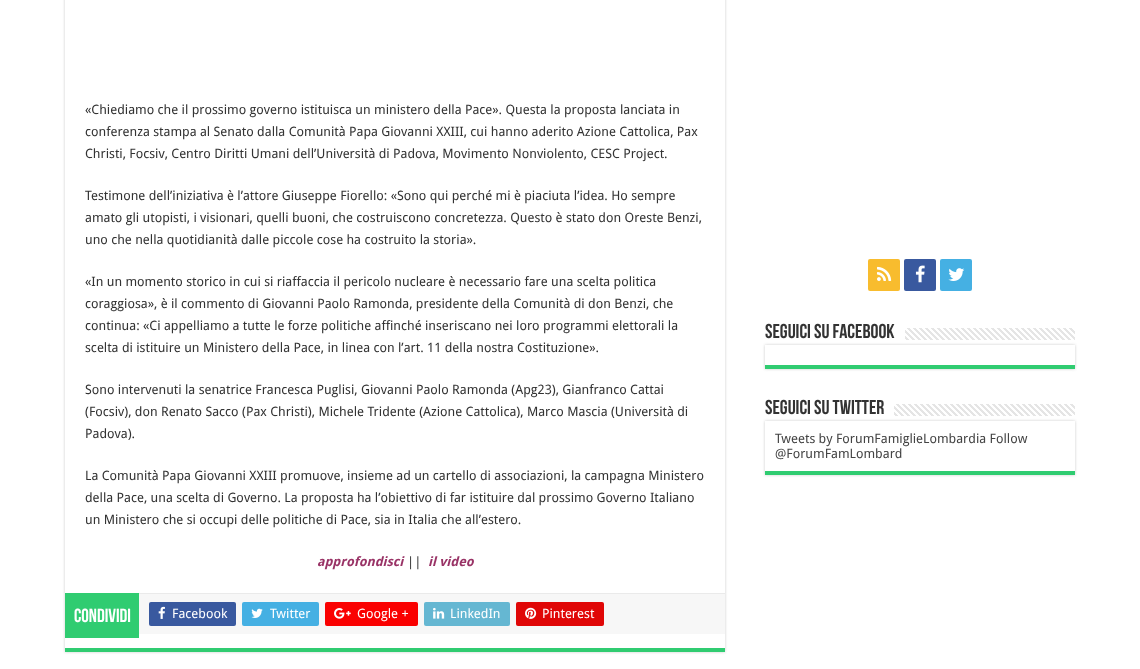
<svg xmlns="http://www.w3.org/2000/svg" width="1140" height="669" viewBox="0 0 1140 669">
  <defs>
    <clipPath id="clip1"><path d="M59 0H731V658H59ZM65-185H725V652H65Z" clip-rule="evenodd"/></clipPath>
    <clipPath id="clip2"><path d="M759 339H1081V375H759ZM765 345H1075V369H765Z" clip-rule="evenodd"/></clipPath>
    <clipPath id="clip3"><path d="M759 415H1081V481H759ZM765 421H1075V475H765Z" clip-rule="evenodd"/></clipPath>
  </defs>
  <rect width="100%" height="100%" fill="rgb(255,255,255)"/>
  <g clip-path="url(#clip1)">
    <rect x="65" y="-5" width="660" height="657" fill="rgb(202,202,202)" filter="blur(1.5px)"/>
  </g>
  <rect x="65" y="648" width="660" height="4" fill="rgb(48,204,113)"/>
  <g font-family="Droid Sans" font-size="13" fill="rgb(51,51,51)">
    <text>
      <tspan x="85" y="114">«Chiediamo che il prossimo governo istituisca un ministero della Pace». Questa la proposta lanciata in</tspan>
      <tspan x="85" y="136">conferenza stampa al Senato dalla Comunità Papa Giovanni XXIII, cui hanno aderito Azione Cattolica, Pax</tspan>
      <tspan x="85" y="158">Christi, Focsiv, Centro Diritti Umani dell’Università di Padova, Movimento Nonviolento, CESC Project.</tspan>
    </text>
    <text>
      <tspan x="85" y="200">Testimone dell’iniziativa è l’attore Giuseppe Fiorello: «Sono qui perché mi è piaciuta l’idea. Ho sempre</tspan>
      <tspan x="85" y="222">amato gli utopisti, i visionari, quelli buoni, che costruiscono concretezza. Questo è stato don Oreste Benzi,</tspan>
      <tspan x="85" y="244">uno che nella quotidianità dalle piccole cose ha costruito la storia».</tspan>
    </text>
    <text>
      <tspan x="85" y="286">«In un momento storico in cui si riaffaccia il pericolo nucleare è necessario fare una scelta politica</tspan>
      <tspan x="85" y="308">coraggiosa», è il commento di Giovanni Paolo Ramonda, presidente della Comunità di don Benzi, che</tspan>
      <tspan x="85" y="330">continua: «Ci appelliamo a tutte le forze politiche affinché inseriscano nei loro programmi elettorali la</tspan>
      <tspan x="85" y="352">scelta di istituire un Ministero della Pace, in linea con l’art. 11 della nostra Costituzione».</tspan>
    </text>
    <text>
      <tspan x="85" y="394">Sono intervenuti la senatrice Francesca Puglisi, Giovanni Paolo Ramonda (Apg23), Gianfranco Cattai</tspan>
      <tspan x="85" y="416">(Focsiv), don Renato Sacco (Pax Christi), Michele Tridente (Azione Cattolica), Marco Mascia (Università di</tspan>
      <tspan x="85" y="438">Padova).</tspan>
    </text>
    <text>
      <tspan x="85" y="480">La Comunità Papa Giovanni XXIII promuove, insieme ad un cartello di associazioni, la campagna Ministero</tspan>
      <tspan x="85" y="502">della Pace, una scelta di Governo. La proposta ha l’obiettivo di far istituire dal prossimo Governo Italiano</tspan>
      <tspan x="85" y="524">un Ministero che si occupi delle politiche di Pace, sia in Italia che all’estero.</tspan>
    </text>
  </g>
  <text x="317" y="566" font-family="Droid Sans" font-size="13" font-weight="bold" font-style="italic" fill="rgb(153,51,102)">approfondisci</text>
  <text x="407" y="566" font-family="Droid Sans" font-size="13" fill="rgb(51,51,51)">||</text>
  <text x="428" y="566" font-family="Droid Sans" font-size="13" font-weight="bold" font-style="italic" fill="rgb(153,51,102)">il video</text>
  <rect x="139" y="594" width="586" height="40" fill="rgb(247,247,247)"/>
  <rect x="139" y="593" width="586" height="1" fill="rgb(234,234,234)"/>
  <rect x="65" y="593" width="74" height="45" fill="rgb(48,204,113)"/>
  <text x="74" y="622" font-family="Bebas Neue" font-size="19" font-weight="bold" fill="rgb(255,255,255)">Condividi</text>
  <rect x="149" y="602" width="87" height="24" rx="2" fill="rgb(57,89,159)"/>
  <image x="158" y="606" width="7" height="13" href="pic1.png"/>
  <text x="172" y="618" font-family="Droid Sans" font-size="13" fill="rgb(255,255,255)">Facebook</text>
  <rect x="242" y="602" width="77" height="24" rx="2" fill="rgb(69,176,227)"/>
  <image x="251" y="608" width="12" height="10" href="pic2.png"/>
  <text x="270" y="618" font-family="Droid Sans" font-size="13" fill="rgb(255,255,255)">Twitter</text>
  <rect x="325" y="602" width="93" height="24" rx="2" fill="rgb(250,1,1)"/>
  <image x="334" y="608" width="17" height="11" href="pic3.png"/>
  <text x="357" y="618" font-family="Droid Sans" font-size="13" fill="rgb(255,255,255)">Google +</text>
  <rect x="424" y="602" width="86" height="24" rx="2" fill="rgb(101,183,210)"/>
  <image x="433" y="607" width="12" height="12" href="pic4.png"/>
  <text x="450" y="618" font-family="Droid Sans" font-size="13" fill="rgb(255,255,255)">LinkedIn</text>
  <rect x="516" y="602" width="88" height="24" rx="2" fill="rgb(224,7,7)"/>
  <image x="525" y="607" width="12" height="12" href="pic5.png"/>
  <text x="542" y="618" font-family="Droid Sans" font-size="13" fill="rgb(255,255,255)">Pinterest</text>
  <rect x="868" y="259" width="32" height="32" rx="2" fill="rgb(248,188,46)"/>
  <image x="877" y="266" width="15" height="15" href="pic6.png"/>
  <rect x="904" y="259" width="32" height="32" rx="2" fill="rgb(57,89,159)"/>
  <image x="915" y="265" width="10" height="18" href="pic7.png"/>
  <rect x="940" y="259" width="32" height="32" rx="2" fill="rgb(69,176,227)"/>
  <image x="948" y="268" width="17" height="13" href="pic8.png"/>
  <text x="765" y="338" font-family="Bebas Neue" font-size="20" font-weight="bold" fill="rgb(51,51,51)">Seguici su Facebook</text>
  <g clip-path="url(#clip2)">
    <rect x="765" y="345" width="310" height="24" fill="rgb(202,202,202)" filter="blur(1.5px)"/>
  </g>
  <image x="905" y="328" width="170" height="12" href="pic9.png"/>
  <rect x="765" y="365" width="310" height="4" fill="rgb(48,204,113)"/>
  <text x="765" y="414" font-family="Bebas Neue" font-size="20" font-weight="bold" fill="rgb(51,51,51)">Seguici su Twitter</text>
  <g clip-path="url(#clip3)">
    <rect x="765" y="421" width="310" height="54" fill="rgb(202,202,202)" filter="blur(1.5px)"/>
  </g>
  <image x="894" y="404" width="181" height="12" href="pic10.png"/>
  <rect x="765" y="471" width="310" height="4" fill="rgb(48,204,113)"/>
  <g font-family="Droid Sans" font-size="13" fill="rgb(68,68,68)">
    <text>
      <tspan x="775" y="443">Tweets by ForumFamiglieLombardia Follow</tspan>
      <tspan x="775" y="458">@ForumFamLombard</tspan>
    </text>
  </g>
</svg>
